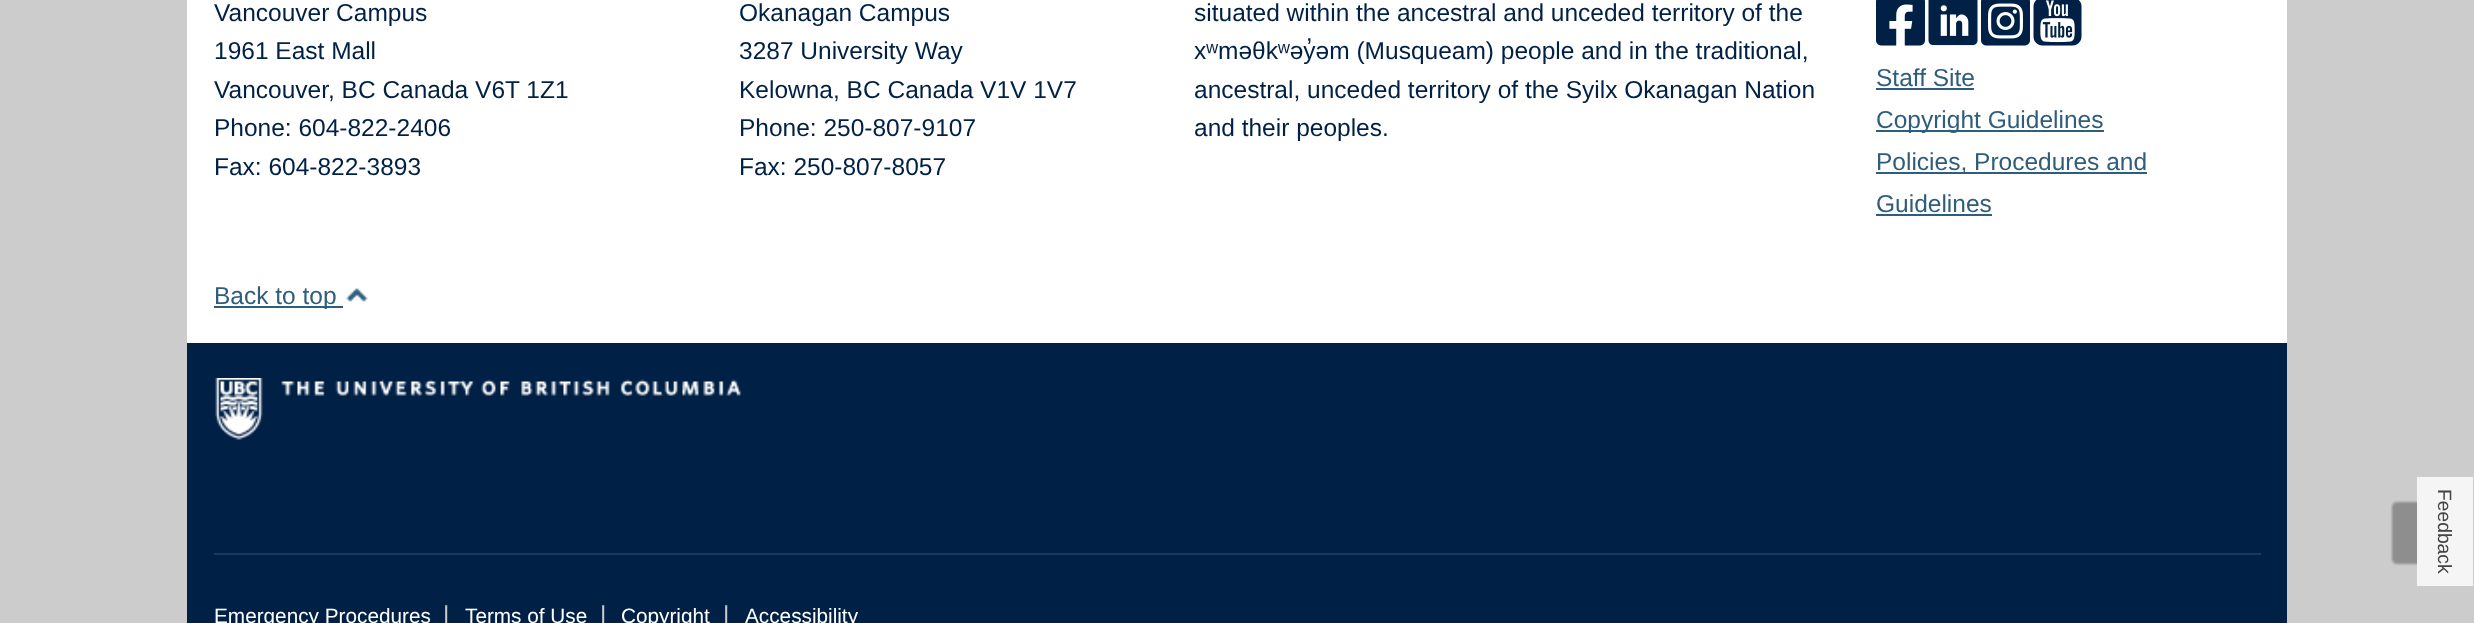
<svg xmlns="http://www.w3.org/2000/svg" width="2474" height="623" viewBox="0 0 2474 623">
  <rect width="100%" height="100%" fill="rgb(204,204,204)"/>
  <rect x="187" y="343" width="2100" height="280" fill="rgb(0,33,69)"/>
  <rect x="187" y="0" width="2100" height="343" fill="rgb(255,255,255)"/>
  <g font-family="Liberation Sans" font-size="24.5" fill="rgb(0,33,69)">
    <text>
      <tspan x="214" y="21">Vancouver Campus</tspan>
      <tspan x="214" y="59">1961 East Mall</tspan>
      <tspan x="214" y="98">Vancouver, BC Canada V6T 1Z1</tspan>
      <tspan x="214" y="136">Phone: 604-822-2406</tspan>
      <tspan x="214" y="175">Fax: 604-822-3893</tspan>
    </text>
    <text>
      <tspan x="739" y="21">Okanagan Campus</tspan>
      <tspan x="739" y="59">3287 University Way</tspan>
      <tspan x="739" y="98">Kelowna, BC Canada V1V 1V7</tspan>
      <tspan x="739" y="136">Phone: 250-807-9107</tspan>
      <tspan x="739" y="175">Fax: 250-807-8057</tspan>
    </text>
    <text>
      <tspan x="1194" y="21">situated within the ancestral and unceded territory of the</tspan>
      <tspan x="1194" y="59">xʷməθkʷəy̓əm (Musqueam) people and in the traditional,</tspan>
      <tspan x="1194" y="98">ancestral, unceded territory of the Syilx Okanagan Nation</tspan>
      <tspan x="1194" y="136">and their peoples.</tspan>
    </text>
  </g>
  <image x="1876" y="0" width="49" height="46" href="pic1.png"/>
  <image x="1928" y="0" width="50" height="46" href="pic2.png"/>
  <image x="1981" y="0" width="49" height="46" href="pic3.png"/>
  <image x="2033" y="0" width="49" height="46" href="pic4.png"/>
  <text x="1876" y="86" font-family="Liberation Sans" font-size="24.5" fill="rgb(47,93,124)">Staff Site</text>
  <rect x="1876" y="88" width="98" height="2" fill="rgb(47,93,124)"/>
  <rect x="1876" y="130" width="228" height="2" fill="rgb(47,93,124)"/>
  <text x="1876" y="128" font-family="Liberation Sans" font-size="24.5" fill="rgb(47,93,124)">Copyright Guidelines</text>
  <rect x="1876" y="172" width="271" height="2" fill="rgb(47,93,124)"/>
  <g font-family="Liberation Sans" font-size="24.5" fill="rgb(47,93,124)">
    <text>
      <tspan x="1876" y="170">Policies, Procedures and</tspan>
      <tspan x="1876" y="212">Guidelines</tspan>
    </text>
  </g>
  <rect x="1876" y="214" width="116" height="2" fill="rgb(47,93,124)"/>
  <rect x="214" y="306" width="129" height="2" fill="rgb(47,93,124)"/>
  <text x="214" y="304" font-family="Liberation Sans" font-size="24.5" fill="rgb(47,93,124)">Back to top</text>
  <image x="346" y="288" width="22" height="14" href="pic5.png"/>
  <image x="215" y="378" width="526" height="62" href="pic6.png"/>
  <rect x="214" y="553" width="2047" height="2" fill="rgb(31,56,95)"/>
  <text x="214" y="623" font-family="Liberation Sans" font-size="20.75" fill="rgb(255,255,255)">Emergency Procedures</text>
  <text x="443" y="623" font-family="Liberation Sans" font-size="24.5" fill="rgb(204,204,204)">|</text>
  <text x="465" y="623" font-family="Liberation Sans" font-size="20.75" fill="rgb(255,255,255)">Terms of Use</text>
  <text x="600" y="623" font-family="Liberation Sans" font-size="24.5" fill="rgb(204,204,204)">|</text>
  <text x="621" y="623" font-family="Liberation Sans" font-size="20.75" fill="rgb(255,255,255)">Copyright</text>
  <text x="723" y="623" font-family="Liberation Sans" font-size="24.5" fill="rgb(204,204,204)">|</text>
  <text x="745" y="623" font-family="Liberation Sans" font-size="20.75" fill="rgb(255,255,255)">Accessibility</text>
  <rect x="2392" y="502" width="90" height="62" rx="5" fill="rgba(0,0,0,0.3)" filter="blur(1px)"/>
  <path d="M2474 479V586H2417V475H2471C2473 475 2474 477 2474 479Z" fill="rgb(245,245,245)"/>
  <rect x="2473" y="477" width="1" height="109" fill="rgb(204,204,204)"/>
  <rect x="2417" y="475" width="56" height="2" fill="rgb(204,204,204)"/>
  <text x="2438" y="489" transform="rotate(90 2438 489)" font-family="Liberation Sans" font-size="19.25" fill="rgb(68,68,68)">Feedback</text>
</svg>
